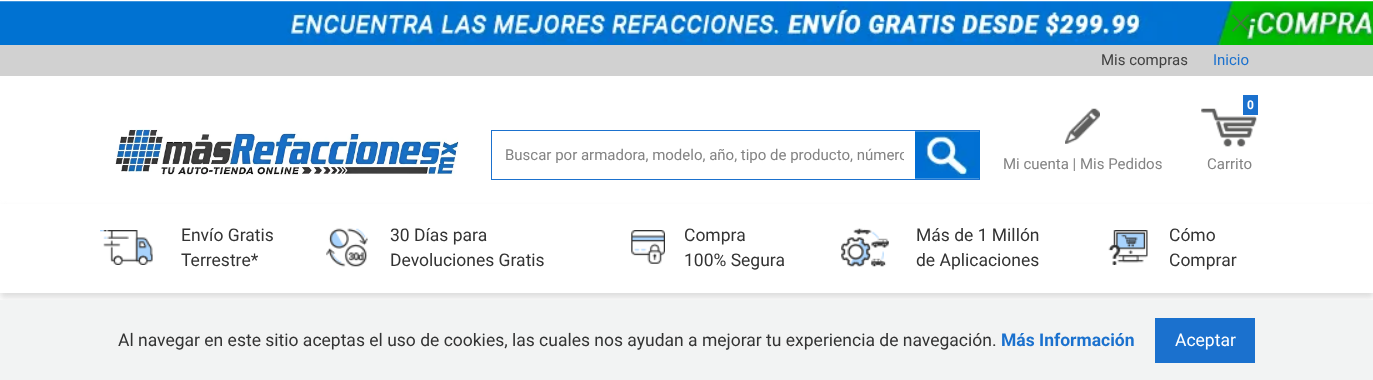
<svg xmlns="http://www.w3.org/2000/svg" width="1373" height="380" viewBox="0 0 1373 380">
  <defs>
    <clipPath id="clip1"><rect x="505" y="146" width="399" height="18"/></clipPath>
  </defs>
  <rect width="100%" height="100%" fill="rgb(255,255,255)"/>
  <image x="0" y="1" width="1373" height="44" href="pic1.png"/>
  <image x="1231" y="14" width="19" height="19" href="pic2.png"/>
  <rect x="0" y="45" width="1373" height="31" fill="rgb(209,209,209)"/>
  <text x="1101" y="65" font-family="Roboto" font-size="15" fill="rgb(65,65,65)">Mis compras</text>
  <text x="1213" y="65" font-family="Roboto" font-size="15" fill="rgb(27,113,206)">Inicio</text>
  <image x="115" y="129" width="344" height="47" href="pic3.png"/>
  <rect x="491.5" y="130.5" width="488" height="49" fill="none" stroke="rgb(27,113,206)"/>
  <g clip-path="url(#clip1)">
    <text x="505" y="160" font-family="Roboto" font-size="15" fill="rgb(131,131,131)">Buscar por armadora, modelo, año, tipo de producto, número</text>
  </g>
  <image x="915" y="131" width="65" height="48" href="pic4.png"/>
  <image x="1065" y="108" width="35" height="36" href="pic5.png"/>
  <text x="1003" y="169" font-family="Roboto" font-size="15" fill="rgb(131,131,131)">Mi cuenta | Mis Pedidos</text>
  <image x="1201" y="108" width="56" height="39" href="pic6.png"/>
  <rect x="1243" y="95" width="15" height="20" fill="rgb(27,113,206)"/>
  <text x="1247" y="109" font-family="Roboto" font-size="12" font-weight="bold" fill="rgb(255,255,255)">0</text>
  <text x="1207" y="169" font-family="Roboto" font-size="15" fill="rgb(131,131,131)">Carrito</text>
  <rect x="0" y="208" width="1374" height="90" fill="rgb(222,222,222)" filter="blur(3px)"/>
  <rect x="0" y="204" width="1373" height="89" fill="rgb(255,255,255)"/>
  <image x="100" y="230" width="53" height="35" href="pic7.png"/>
  <g font-family="Roboto" font-size="17.5" fill="rgb(51,51,51)">
    <text>
      <tspan x="181" y="241">Envío Gratis</tspan>
      <tspan x="181" y="266">Terrestre*</tspan>
    </text>
  </g>
  <image x="326" y="228" width="42" height="39" href="pic8.png"/>
  <g font-family="Roboto" font-size="17.5" fill="rgb(51,51,51)">
    <text>
      <tspan x="390" y="241">30 Días para</tspan>
      <tspan x="390" y="266">Devoluciones Gratis</tspan>
    </text>
  </g>
  <image x="631" y="230" width="34" height="34" href="pic9.png"/>
  <g font-family="Roboto" font-size="17.5" fill="rgb(51,51,51)">
    <text>
      <tspan x="684" y="241">Compra</tspan>
      <tspan x="684" y="266">100% Segura</tspan>
    </text>
  </g>
  <image x="841" y="228" width="48" height="39" href="pic10.png"/>
  <g font-family="Roboto" font-size="17.5" fill="rgb(51,51,51)">
    <text>
      <tspan x="916" y="241">Más de 1 Millón</tspan>
      <tspan x="916" y="266">de Aplicaciones</tspan>
    </text>
  </g>
  <image x="1108" y="230" width="40" height="35" href="pic11.png"/>
  <g font-family="Roboto" font-size="17.5" fill="rgb(51,51,51)">
    <text>
      <tspan x="1169" y="241">Cómo</tspan>
      <tspan x="1169" y="266">Comprar</tspan>
    </text>
  </g>
  <rect x="0" y="300" width="1373" height="80" fill="rgb(242,243,243)"/>
  <text x="118" y="346" font-family="Roboto" font-size="17.5" fill="rgb(51,51,51)">Al navegar en este sitio aceptas el uso de cookies, las cuales nos ayudan a mejorar tu experiencia de navegación.</text>
  <text x="1001" y="346" font-family="Roboto" font-size="17.5" font-weight="bold" fill="rgb(27,113,206)">Más Información</text>
  <rect x="1155" y="318" width="100" height="45" fill="rgb(27,113,206)"/>
  <text x="1175" y="346" font-family="Roboto" font-size="17.5" fill="rgb(255,255,255)">Aceptar</text>
</svg>
